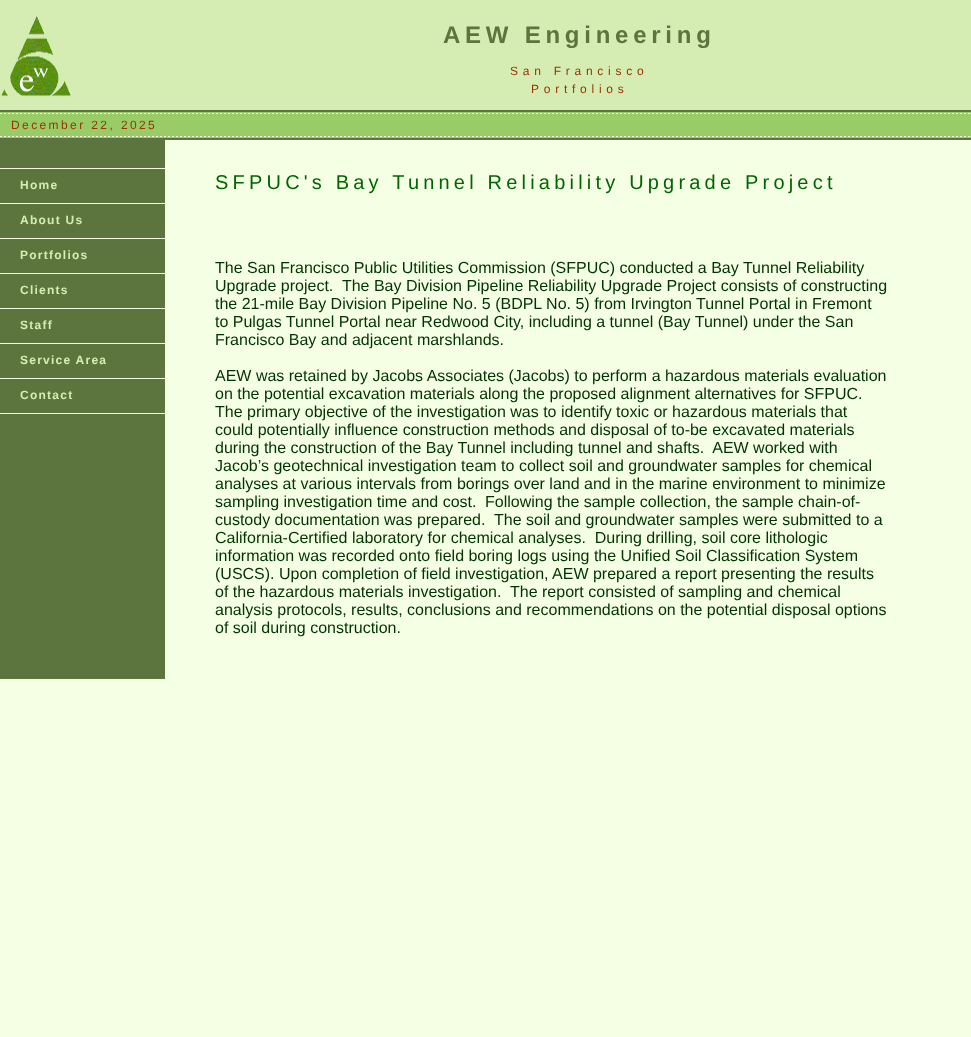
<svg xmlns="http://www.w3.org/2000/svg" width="971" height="1037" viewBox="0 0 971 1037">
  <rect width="100%" height="100%" fill="rgb(244,255,228)"/>
  <rect x="0" y="0" width="971" height="110" fill="rgb(213,237,179)"/>
  <image x="1" y="16" width="70" height="81" href="pic1.png"/>
  <text x="443" y="43" font-family="Liberation Sans" font-size="24" font-weight="bold" letter-spacing="4.75" fill="rgb(92,116,61)">AEW Engineering</text>
  <g font-family="Liberation Sans" font-size="12" letter-spacing="4.75" fill="rgb(153,51,0)">
    <text x="510" y="75">San Francisco</text>
    <text x="531" y="93">Portfolios</text>
  </g>
  <rect x="0" y="110" width="971" height="2" fill="rgb(92,116,61)"/>
  <rect x="0" y="112" width="971" height="26" fill="rgb(153,204,102)"/>
  <image x="0" y="113" width="970" height="1" href="pic2.png"/>
  <text x="11" y="129" font-family="Liberation Sans" font-size="12" letter-spacing="2.4" fill="rgb(153,51,0)">December 22, 2025</text>
  <image x="0" y="136" width="970" height="1" href="pic2.png"/>
  <rect x="0" y="138" width="971" height="2" fill="rgb(92,116,61)"/>
  <rect x="0" y="140" width="165" height="539" fill="rgb(92,116,61)"/>
  <rect x="0" y="168" width="165" height="1" fill="rgb(244,255,228)"/>
  <rect x="0" y="203" width="165" height="1" fill="rgb(244,255,228)"/>
  <text x="20" y="189" font-family="Liberation Sans" font-size="12" font-weight="bold" letter-spacing="1.25" fill="rgb(213,237,179)">Home</text>
  <rect x="0" y="238" width="165" height="1" fill="rgb(244,255,228)"/>
  <text x="20" y="224" font-family="Liberation Sans" font-size="12" font-weight="bold" letter-spacing="1.25" fill="rgb(213,237,179)">About Us</text>
  <rect x="0" y="273" width="165" height="1" fill="rgb(244,255,228)"/>
  <text x="20" y="259" font-family="Liberation Sans" font-size="12" font-weight="bold" letter-spacing="1.25" fill="rgb(213,237,179)">Portfolios</text>
  <rect x="0" y="308" width="165" height="1" fill="rgb(244,255,228)"/>
  <text x="20" y="294" font-family="Liberation Sans" font-size="12" font-weight="bold" letter-spacing="1.25" fill="rgb(213,237,179)">Clients</text>
  <rect x="0" y="343" width="165" height="1" fill="rgb(244,255,228)"/>
  <text x="20" y="329" font-family="Liberation Sans" font-size="12" font-weight="bold" letter-spacing="1.25" fill="rgb(213,237,179)">Staff</text>
  <rect x="0" y="378" width="165" height="1" fill="rgb(244,255,228)"/>
  <text x="20" y="364" font-family="Liberation Sans" font-size="12" font-weight="bold" letter-spacing="1.25" fill="rgb(213,237,179)">Service Area</text>
  <rect x="0" y="413" width="165" height="1" fill="rgb(244,255,228)"/>
  <text x="20" y="399" font-family="Liberation Sans" font-size="12" font-weight="bold" letter-spacing="1.25" fill="rgb(213,237,179)">Contact</text>
  <text x="215" y="189" font-family="Liberation Sans" font-size="20" letter-spacing="4.2" fill="rgb(0,102,0)">SFPUC's Bay Tunnel Reliability Upgrade Project</text>
  <g font-family="Liberation Sans" font-size="16" fill="rgb(0,51,0)">
    <text xml:space="preserve"><tspan x="215" y="273">The San Francisco Public Utilities Commission (SFPUC) conducted a Bay Tunnel Reliability</tspan><tspan x="215" y="291">Upgrade project.  The Bay Division Pipeline Reliability Upgrade Project consists of constructing</tspan><tspan x="215" y="309">the 21-mile Bay Division Pipeline No. 5 (BDPL No. 5) from Irvington Tunnel Portal in Fremont</tspan><tspan x="215" y="327">to Pulgas Tunnel Portal near Redwood City, including a tunnel (Bay Tunnel) under the San</tspan><tspan x="215" y="345">Francisco Bay and adjacent marshlands.</tspan></text>
    <text xml:space="preserve"><tspan x="215" y="381">AEW was retained by Jacobs Associates (Jacobs) to perform a hazardous materials evaluation</tspan><tspan x="215" y="399">on the potential excavation materials along the proposed alignment alternatives for SFPUC.</tspan><tspan x="215" y="417">The primary objective of the investigation was to identify toxic or hazardous materials that</tspan><tspan x="215" y="435">could potentially influence construction methods and disposal of to-be excavated materials</tspan><tspan x="215" y="453">during the construction of the Bay Tunnel including tunnel and shafts.  AEW worked with</tspan><tspan x="215" y="471">Jacob’s geotechnical investigation team to collect soil and groundwater samples for chemical</tspan><tspan x="215" y="489">analyses at various intervals from borings over land and in the marine environment to minimize</tspan><tspan x="215" y="507">sampling investigation time and cost.</tspan></text>
    <text x="485" y="507">Following the sample collection, the sample chain-of-</text>
    <text xml:space="preserve"><tspan x="215" y="525">custody documentation was prepared.  The soil and groundwater samples were submitted to a</tspan><tspan x="215" y="543">California-Certified laboratory for chemical analyses.  During drilling, soil core lithologic</tspan><tspan x="215" y="561">information was recorded onto field boring logs using the Unified Soil Classification System</tspan><tspan x="215" y="579">(USCS). Upon completion of field investigation, AEW prepared a report presenting the results</tspan><tspan x="215" y="597">of the hazardous materials investigation.  The report consisted of sampling and chemical</tspan><tspan x="215" y="615">analysis protocols, results, conclusions and recommendations on the potential disposal options</tspan><tspan x="215" y="633">of soil during construction.</tspan></text>
  </g>
</svg>
